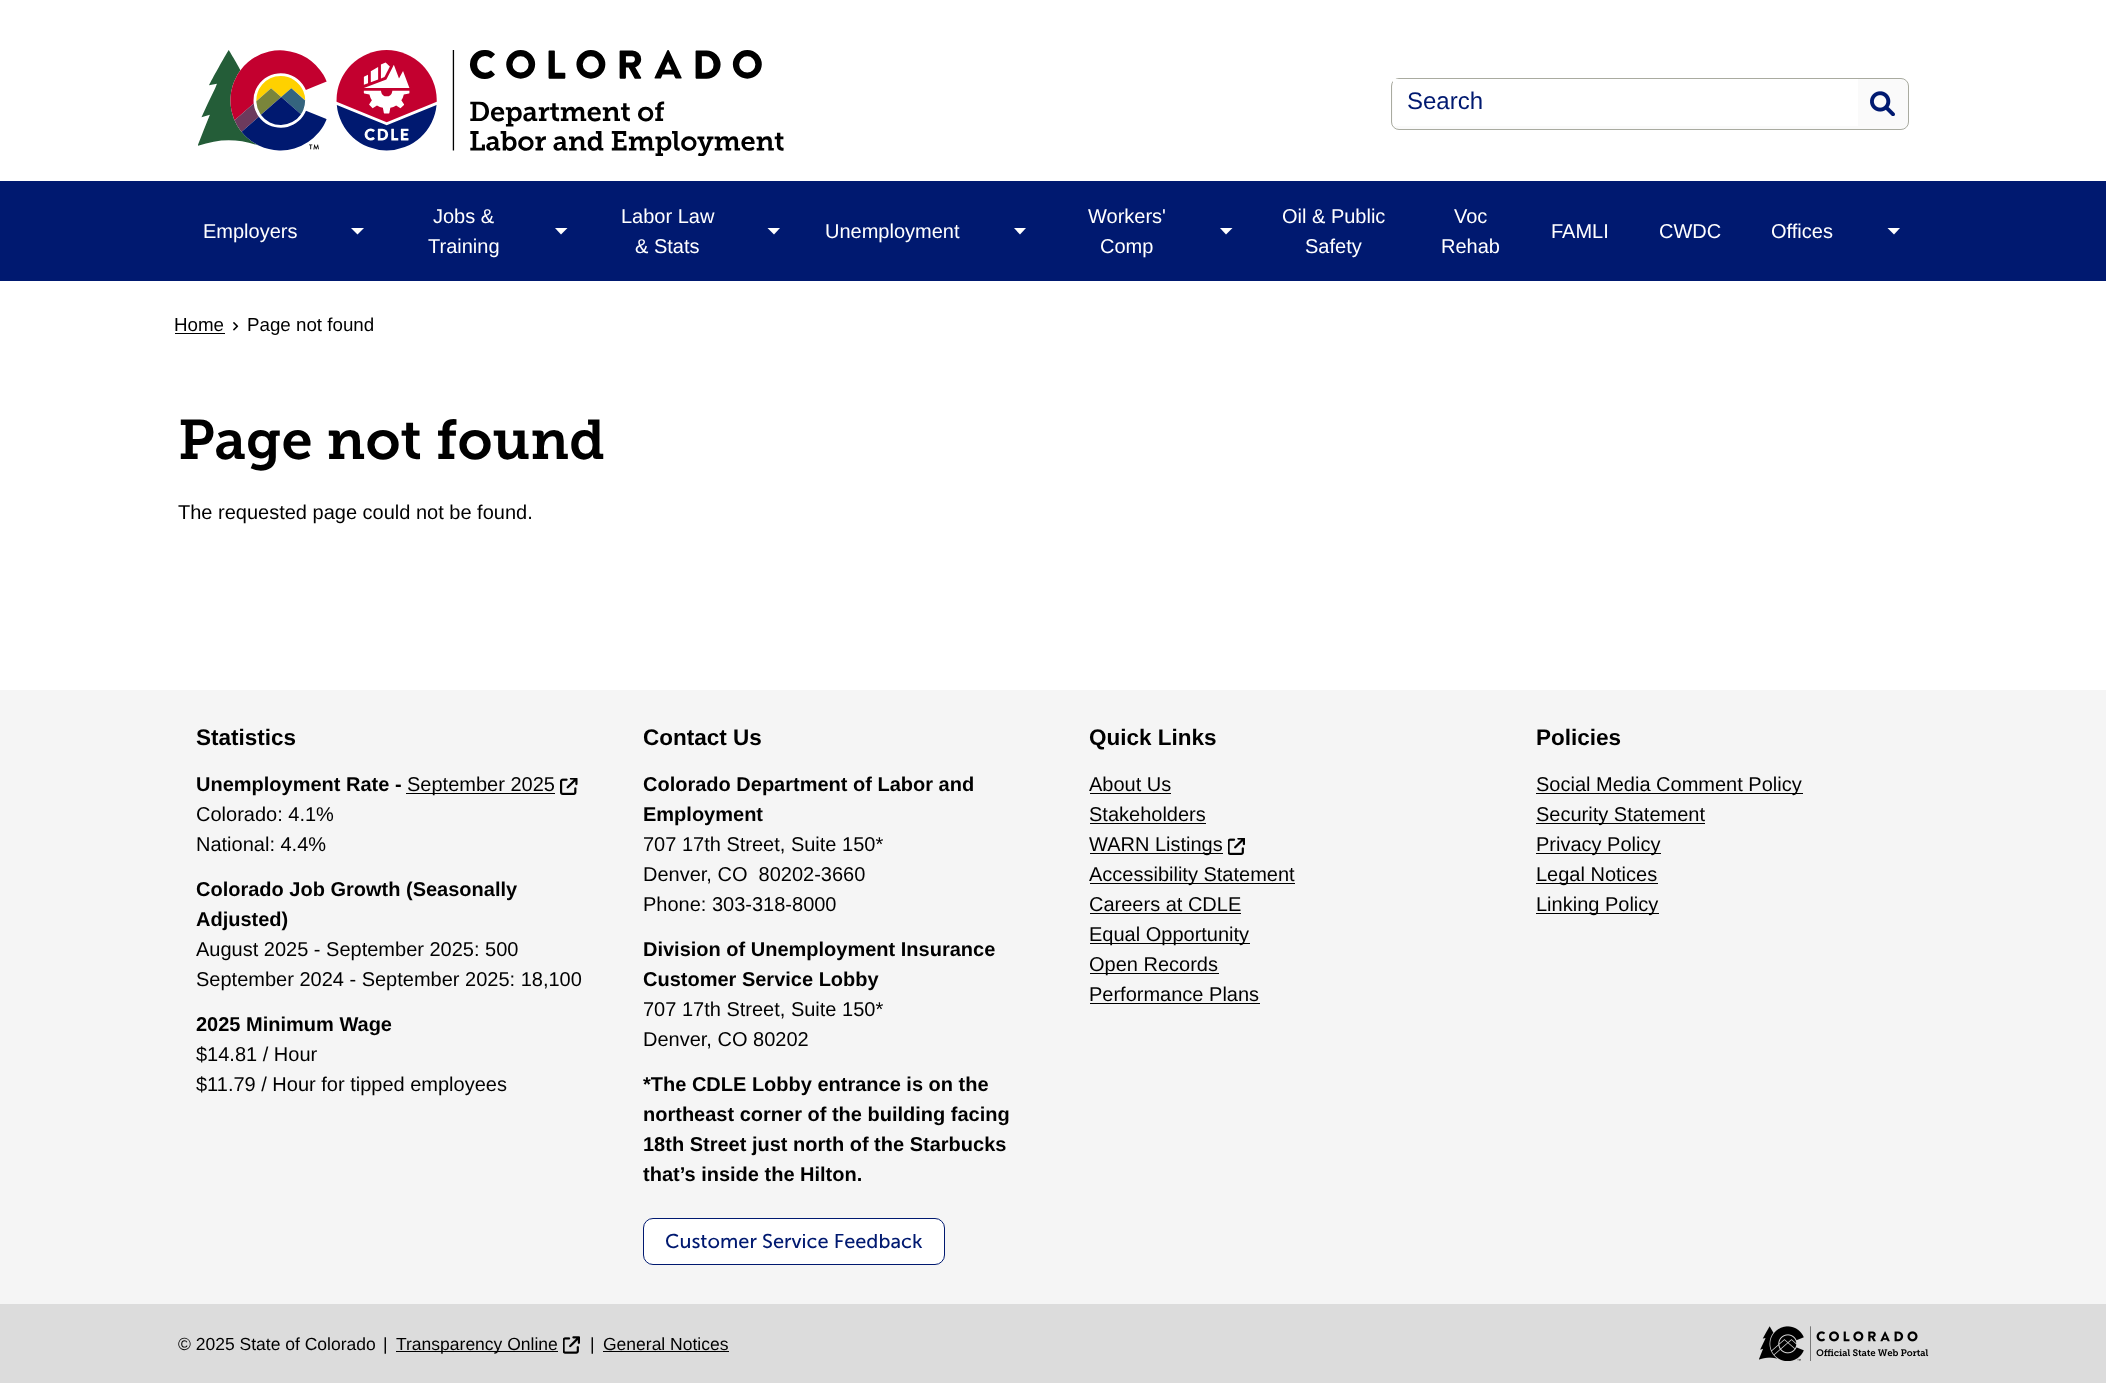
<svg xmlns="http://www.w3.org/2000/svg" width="2106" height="1383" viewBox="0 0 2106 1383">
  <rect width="100%" height="100%" fill="rgb(255,255,255)"/>
  <image x="198" y="50" width="586" height="106" href="pic1.png"/>
  <rect x="1391.5" y="78.5" width="517" height="51" rx="7.5" fill="rgb(250,250,250)" stroke="rgb(169,171,160)"/>
  <rect x="1393" y="79" width="465" height="47" fill="rgb(255,255,255)"/>
  <text x="1407" y="109" font-family="Liberation Sans" font-size="24" fill="rgb(0,25,112)">Search</text>
  <image x="1870" y="91" width="25" height="25" href="pic2.png"/>
  <rect x="0" y="181" width="2106" height="100" fill="rgb(0,25,112)"/>
  <text x="203" y="238" font-family="Liberation Sans" font-size="20" fill="rgb(255,255,255)">Employers</text>
  <path d="M351 228H364L357.5 234.5Z" fill="rgb(255,255,255)"/>
  <g font-family="Liberation Sans" font-size="20" fill="rgb(255,255,255)">
    <text x="433" y="223">Jobs &amp;</text>
    <text x="428" y="253">Training</text>
  </g>
  <path d="M555 228H567.5L561 234.5Z" fill="rgb(255,255,255)"/>
  <g font-family="Liberation Sans" font-size="20" fill="rgb(255,255,255)">
    <text x="621" y="223">Labor Law</text>
    <text x="635" y="253">&amp; Stats</text>
  </g>
  <path d="M767.5 228H780L774 234.5Z" fill="rgb(255,255,255)"/>
  <text x="825" y="238" font-family="Liberation Sans" font-size="20" fill="rgb(255,255,255)">Unemployment</text>
  <path d="M1014 228H1026L1020 234.5Z" fill="rgb(255,255,255)"/>
  <g font-family="Liberation Sans" font-size="20" fill="rgb(255,255,255)">
    <text x="1088" y="223">Workers'</text>
    <text x="1100" y="253">Comp</text>
  </g>
  <path d="M1220 228H1232.5L1226 234.5Z" fill="rgb(255,255,255)"/>
  <g font-family="Liberation Sans" font-size="20" fill="rgb(255,255,255)">
    <text x="1282" y="223">Oil &amp; Public</text>
    <text x="1305" y="253">Safety</text>
    <text x="1454" y="223">Voc</text>
    <text x="1441" y="253">Rehab</text>
    <text x="1551" y="238">FAMLI</text>
    <text x="1659" y="238">CWDC</text>
    <text x="1771" y="238">Offices</text>
  </g>
  <path d="M1887.5 228H1900L1894 234.5Z" fill="rgb(255,255,255)"/>
  <text x="174" y="331" font-family="Liberation Sans" font-size="18.75" fill="rgb(0,0,0)">Home</text>
  <rect x="175" y="333" width="50" height="1" fill="rgb(0,0,0)"/>
  <image x="233" y="322" width="6" height="9" href="pic3.png"/>
  <text x="247" y="331" font-family="Liberation Sans" font-size="18.75" fill="rgb(0,0,0)">Page not found</text>
  <text x="178" y="459" font-family="'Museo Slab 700'" font-size="55.75" font-weight="600" fill="rgb(0,0,0)">Page not found</text>
  <text x="178" y="519" font-family="Liberation Sans" font-size="20" fill="rgb(0,0,0)">The requested page could not be found.</text>
  <rect x="0" y="690" width="2106" height="614" fill="rgb(245,245,245)"/>
  <text x="196" y="745" font-family="Liberation Sans" font-size="22.5" font-weight="bold" fill="rgb(0,0,0)">Statistics</text>
  <text x="196" y="791" font-family="Liberation Sans" font-size="20" font-weight="bold" fill="rgb(0,0,0)">Unemployment Rate -</text>
  <rect x="406" y="793" width="149" height="1" fill="rgb(0,0,0)"/>
  <text x="407" y="791" font-family="Liberation Sans" font-size="20" fill="rgb(0,0,0)">September 2025</text>
  <image x="560" y="778" width="18" height="17" href="pic4.png"/>
  <g font-family="Liberation Sans" font-size="20" fill="rgb(0,0,0)">
    <text>
      <tspan x="196" y="821">Colorado: 4.1%</tspan>
      <tspan x="196" y="851">National: 4.4%</tspan>
    </text>
  </g>
  <g font-family="Liberation Sans" font-size="20" font-weight="bold" fill="rgb(0,0,0)">
    <text>
      <tspan x="196" y="896">Colorado Job Growth (Seasonally</tspan>
      <tspan x="196" y="926">Adjusted)</tspan>
    </text>
  </g>
  <g font-family="Liberation Sans" font-size="20" fill="rgb(0,0,0)">
    <text>
      <tspan x="196" y="956">August 2025 - September 2025: 500</tspan>
      <tspan x="196" y="986">September 2024 - September 2025: 18,100</tspan>
    </text>
  </g>
  <text x="196" y="1031" font-family="Liberation Sans" font-size="20" font-weight="bold" fill="rgb(0,0,0)">2025 Minimum Wage</text>
  <g font-family="Liberation Sans" font-size="20" fill="rgb(0,0,0)">
    <text>
      <tspan x="196" y="1061">$14.81 / Hour</tspan>
      <tspan x="196" y="1091">$11.79 / Hour for tipped employees</tspan>
    </text>
  </g>
  <text x="643" y="745" font-family="Liberation Sans" font-size="22.5" font-weight="bold" fill="rgb(0,0,0)">Contact Us</text>
  <g font-family="Liberation Sans" font-size="20" font-weight="bold" fill="rgb(0,0,0)">
    <text>
      <tspan x="643" y="791">Colorado Department of Labor and</tspan>
      <tspan x="643" y="821">Employment</tspan>
    </text>
  </g>
  <g font-family="Liberation Sans" font-size="20" fill="rgb(0,0,0)">
    <text xml:space="preserve"><tspan x="643" y="851">707 17th Street, Suite 150*</tspan><tspan x="643" y="881">Denver, CO  80202-3660</tspan><tspan x="643" y="911">Phone: 303-318-8000</tspan></text>
  </g>
  <g font-family="Liberation Sans" font-size="20" font-weight="bold" fill="rgb(0,0,0)">
    <text>
      <tspan x="643" y="956">Division of Unemployment Insurance</tspan>
      <tspan x="643" y="986">Customer Service Lobby</tspan>
    </text>
  </g>
  <g font-family="Liberation Sans" font-size="20" fill="rgb(0,0,0)">
    <text>
      <tspan x="643" y="1016">707 17th Street, Suite 150*</tspan>
      <tspan x="643" y="1046">Denver, CO 80202</tspan>
    </text>
  </g>
  <g font-family="Liberation Sans" font-size="20" font-weight="bold" fill="rgb(0,0,0)">
    <text>
      <tspan x="643" y="1091">*The CDLE Lobby entrance is on the</tspan>
      <tspan x="643" y="1121">northeast corner of the building facing</tspan>
      <tspan x="643" y="1151">18th Street just north of the Starbucks</tspan>
      <tspan x="643" y="1181">that’s inside the Hilton.</tspan>
    </text>
  </g>
  <rect x="643.5" y="1218.5" width="301" height="46" rx="9.5" fill="rgb(255,255,255)" stroke="rgb(0,25,112)"/>
  <text x="665" y="1248" font-family="'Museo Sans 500'" font-size="20" fill="rgb(0,25,112)">Customer Service Feedback</text>
  <text x="1089" y="745" font-family="Liberation Sans" font-size="22.5" font-weight="bold" fill="rgb(0,0,0)">Quick Links</text>
  <text x="1089" y="791" font-family="Liberation Sans" font-size="20" fill="rgb(0,0,0)">About Us</text>
  <rect x="1090" y="793" width="81" height="1" fill="rgb(0,0,0)"/>
  <text x="1089" y="821" font-family="Liberation Sans" font-size="20" fill="rgb(0,0,0)">Stakeholders</text>
  <rect x="1090" y="823" width="116" height="1" fill="rgb(0,0,0)"/>
  <rect x="1090" y="853" width="133" height="1" fill="rgb(0,0,0)"/>
  <text x="1089" y="851" font-family="Liberation Sans" font-size="20" fill="rgb(0,0,0)">WARN Listings</text>
  <image x="1228" y="838" width="17" height="17" href="pic5.png"/>
  <rect x="1090" y="883" width="205" height="1" fill="rgb(0,0,0)"/>
  <g font-family="Liberation Sans" font-size="20" fill="rgb(0,0,0)">
    <text>
      <tspan x="1089" y="881">Accessibility Statement</tspan>
      <tspan x="1089" y="911">Careers at CDLE</tspan>
    </text>
  </g>
  <rect x="1090" y="913" width="151" height="1" fill="rgb(0,0,0)"/>
  <rect x="1090" y="943" width="160" height="1" fill="rgb(0,0,0)"/>
  <text x="1089" y="941" font-family="Liberation Sans" font-size="20" fill="rgb(0,0,0)">Equal Opportunity</text>
  <rect x="1090" y="973" width="129" height="1" fill="rgb(0,0,0)"/>
  <g font-family="Liberation Sans" font-size="20" fill="rgb(0,0,0)">
    <text>
      <tspan x="1089" y="971">Open Records</tspan>
      <tspan x="1089" y="1001">Performance Plans</tspan>
    </text>
  </g>
  <rect x="1090" y="1003" width="170" height="1" fill="rgb(0,0,0)"/>
  <text x="1536" y="745" font-family="Liberation Sans" font-size="22.5" font-weight="bold" fill="rgb(0,0,0)">Policies</text>
  <rect x="1536" y="793" width="267" height="1" fill="rgb(0,0,0)"/>
  <text x="1536" y="791" font-family="Liberation Sans" font-size="20" fill="rgb(0,0,0)">Social Media Comment Policy</text>
  <rect x="1536" y="823" width="169" height="1" fill="rgb(0,0,0)"/>
  <text x="1536" y="821" font-family="Liberation Sans" font-size="20" fill="rgb(0,0,0)">Security Statement</text>
  <rect x="1536" y="853" width="125" height="1" fill="rgb(0,0,0)"/>
  <text x="1536" y="851" font-family="Liberation Sans" font-size="20" fill="rgb(0,0,0)">Privacy Policy</text>
  <rect x="1536" y="883" width="122" height="1" fill="rgb(0,0,0)"/>
  <text x="1536" y="881" font-family="Liberation Sans" font-size="20" fill="rgb(0,0,0)">Legal Notices</text>
  <rect x="1536" y="913" width="123" height="1" fill="rgb(0,0,0)"/>
  <text x="1536" y="911" font-family="Liberation Sans" font-size="20" fill="rgb(0,0,0)">Linking Policy</text>
  <rect x="0" y="1304" width="2106" height="79" fill="rgb(220,220,220)"/>
  <g font-family="Liberation Sans" font-size="17.5" fill="rgb(0,0,0)">
    <text x="178" y="1350">© 2025 State of Colorado</text>
    <text x="383" y="1350">|</text>
  </g>
  <rect x="396" y="1351" width="162" height="1" fill="rgb(0,0,0)"/>
  <text x="396" y="1350" font-family="Liberation Sans" font-size="17.5" fill="rgb(0,0,0)">Transparency Online</text>
  <image x="563" y="1336" width="17" height="18" href="pic6.png"/>
  <g font-family="Liberation Sans" font-size="17.5" fill="rgb(0,0,0)">
    <text x="590" y="1350">|</text>
    <text x="603" y="1350">General Notices</text>
  </g>
  <rect x="603" y="1351" width="126" height="1" fill="rgb(0,0,0)"/>
  <image x="1759" y="1326" width="170" height="35" href="pic7.png"/>
</svg>
